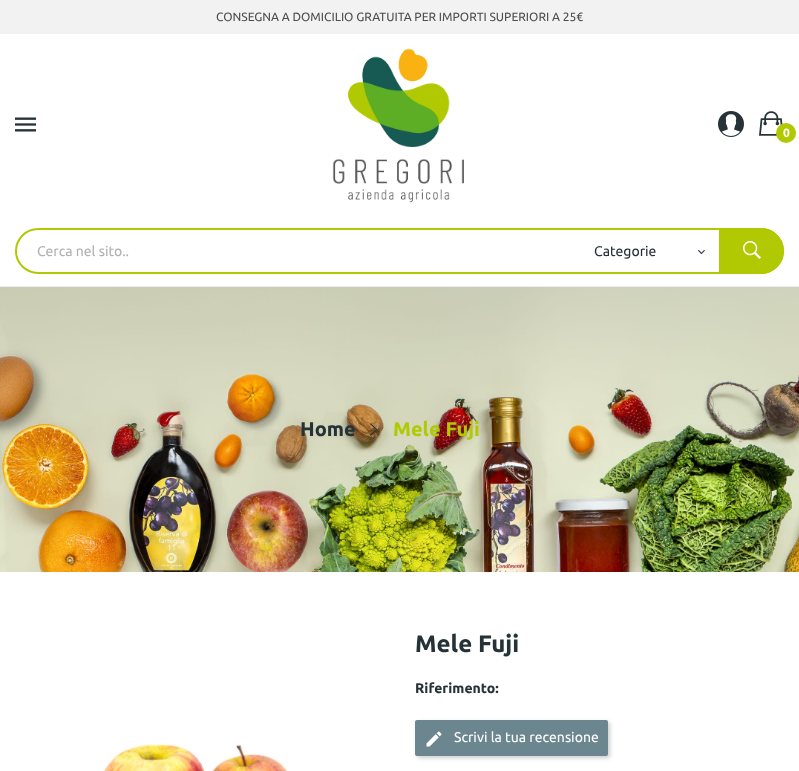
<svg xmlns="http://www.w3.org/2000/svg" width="799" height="771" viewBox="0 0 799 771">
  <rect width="100%" height="100%" fill="rgb(255,255,255)"/>
  <rect x="0" y="0" width="799" height="34" fill="rgb(242,242,242)"/>
  <text x="216" y="21" font-family="Ubuntu" font-size="12" fill="rgb(78,78,78)">CONSEGNA A DOMICILIO GRATUITA PER IMPORTI SUPERIORI A 25€</text>
  <image x="15" y="117" width="21" height="15" href="pic1.png"/>
  <image x="332" y="48" width="132" height="155" href="pic2.png"/>
  <image x="718" y="111" width="26" height="26" href="pic3.png"/>
  <image x="759" y="111" width="24" height="25" href="pic4.png"/>
  <circle cx="786" cy="133" r="10" fill="rgb(177,201,3)"/>
  <text x="783" y="137" font-family="Ubuntu" font-size="12" font-weight="bold" fill="rgb(255,255,255)">0</text>
  <rect x="16" y="229" width="767" height="44" rx="22" fill="none" stroke="rgb(177,201,3)" stroke-width="2"/>
  <text x="37" y="256" font-family="Ubuntu" font-size="14" fill="rgb(177,177,177)">Cerca nel sito..</text>
  <image x="698" y="250" width="7" height="4" href="pic5.png"/>
  <text x="594" y="256" font-family="Ubuntu" font-size="14" fill="rgb(37,50,55)">Categorie</text>
  <path d="M719 228H761C773.5 228 784 238.5 784 251C784 263.5 773.5 274 761 274H719Z" fill="rgb(177,201,3)"/>
  <image x="743" y="241" width="18" height="18" href="pic6.png"/>
  <rect x="0" y="286" width="799" height="1" fill="rgb(237,237,237)"/>
  <image x="0" y="287" width="799" height="285" href="pic7.png"/>
  <text x="300" y="436" font-family="Ubuntu" font-size="20" font-weight="bold" fill="rgb(37,50,55)">Home</text>
  <image x="370" y="423" width="8" height="13" href="pic8.png"/>
  <text x="393" y="436" font-family="Ubuntu" font-size="20" font-weight="bold" fill="rgb(177,201,3)">Mele Fuji</text>
  <text x="415" y="652" font-family="Ubuntu" font-size="24" font-weight="bold" fill="rgb(37,50,55)">Mele Fuji</text>
  <text x="415" y="693" font-family="Ubuntu" font-size="14" font-weight="bold" fill="rgb(37,50,55)">Riferimento:</text>
  <rect x="417" y="722" width="193" height="36" rx="2" fill="rgba(0,0,0,0.2)" filter="blur(2px)"/>
  <rect x="415" y="720" width="193" height="36" rx="2" fill="rgb(107,134,143)"/>
  <image x="426" y="731" width="16" height="16" href="pic9.png"/>
  <text x="454" y="742" font-family="Ubuntu" font-size="14" fill="rgb(255,255,255)">Scrivi la tua recensione</text>
  <image x="103" y="743" width="185" height="28" href="pic10.png"/>
</svg>
